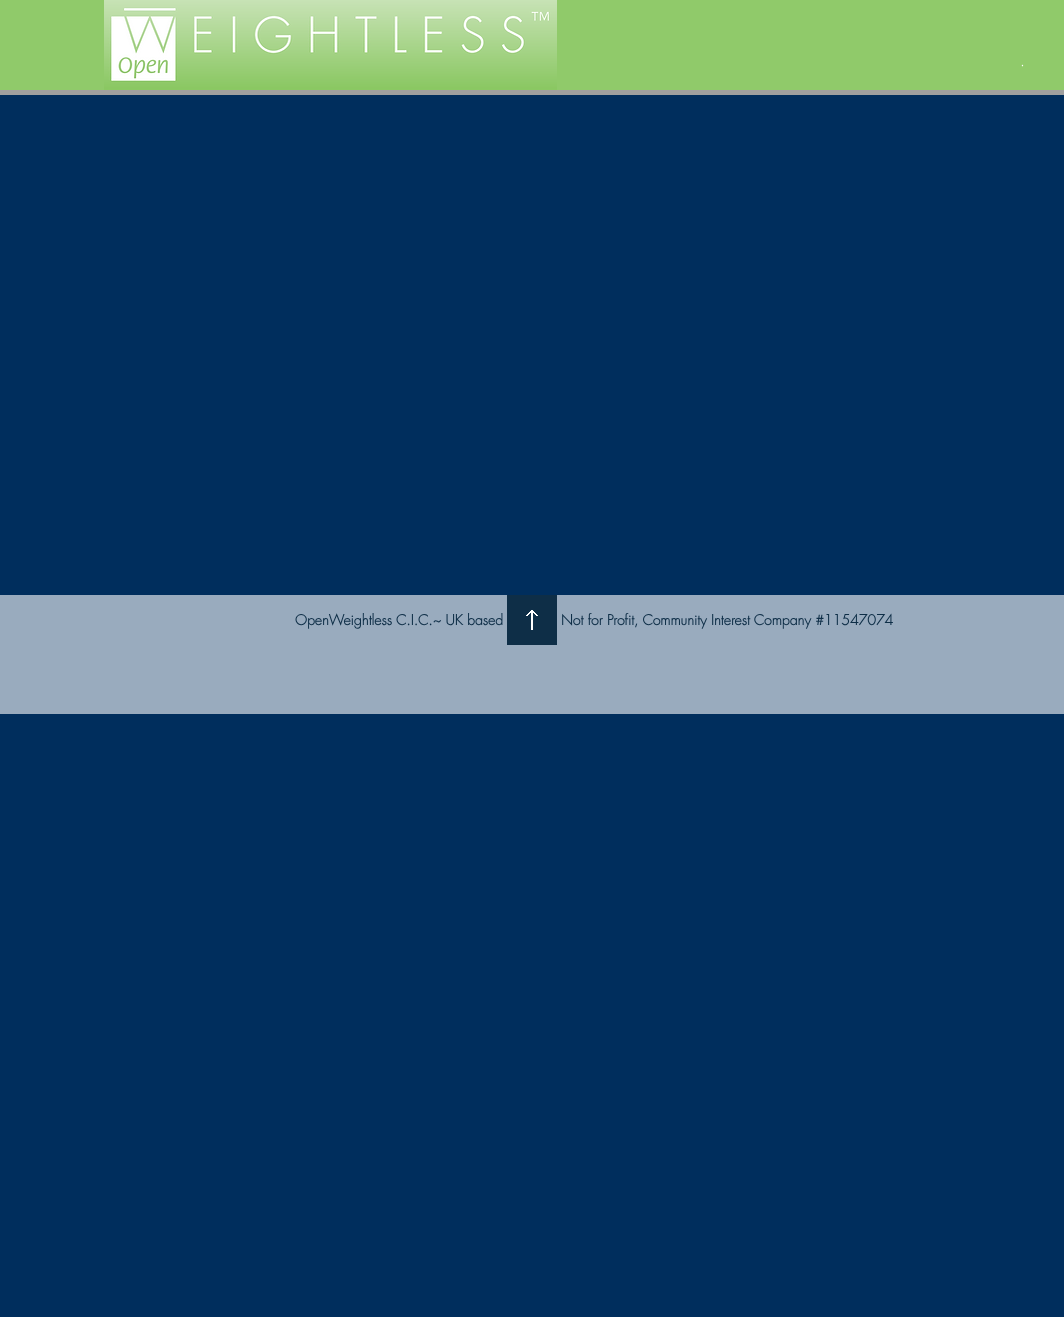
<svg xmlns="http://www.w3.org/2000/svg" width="1064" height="1317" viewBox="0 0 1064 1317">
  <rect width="100%" height="100%" fill="rgb(0,46,93)"/>
  <rect x="0" y="90" width="1064" height="5" fill="rgb(160,160,159)"/>
  <rect x="0" y="0" width="1064" height="90" fill="rgb(144,202,106)"/>
  <image x="104" y="0" width="453" height="90" href="pic1.png"/>
  <text x="1020" y="66" font-family="futura" font-size="16" font-weight="300" fill="rgb(255,255,255)">.</text>
  <rect x="0" y="595" width="1064" height="119" fill="rgb(153,171,190)"/>
  <text x="295" y="625" font-family="futura" font-size="14" font-weight="bold" fill="rgb(14,46,71)">OpenWeightless C.I.C.~ UK based</text>
  <image x="507" y="595" width="50" height="50" href="pic2.png"/>
  <text x="561" y="625" font-family="futura" font-size="14" font-weight="bold" fill="rgb(14,46,71)">Not for Profit, Community Interest Company #11547074</text>
</svg>
